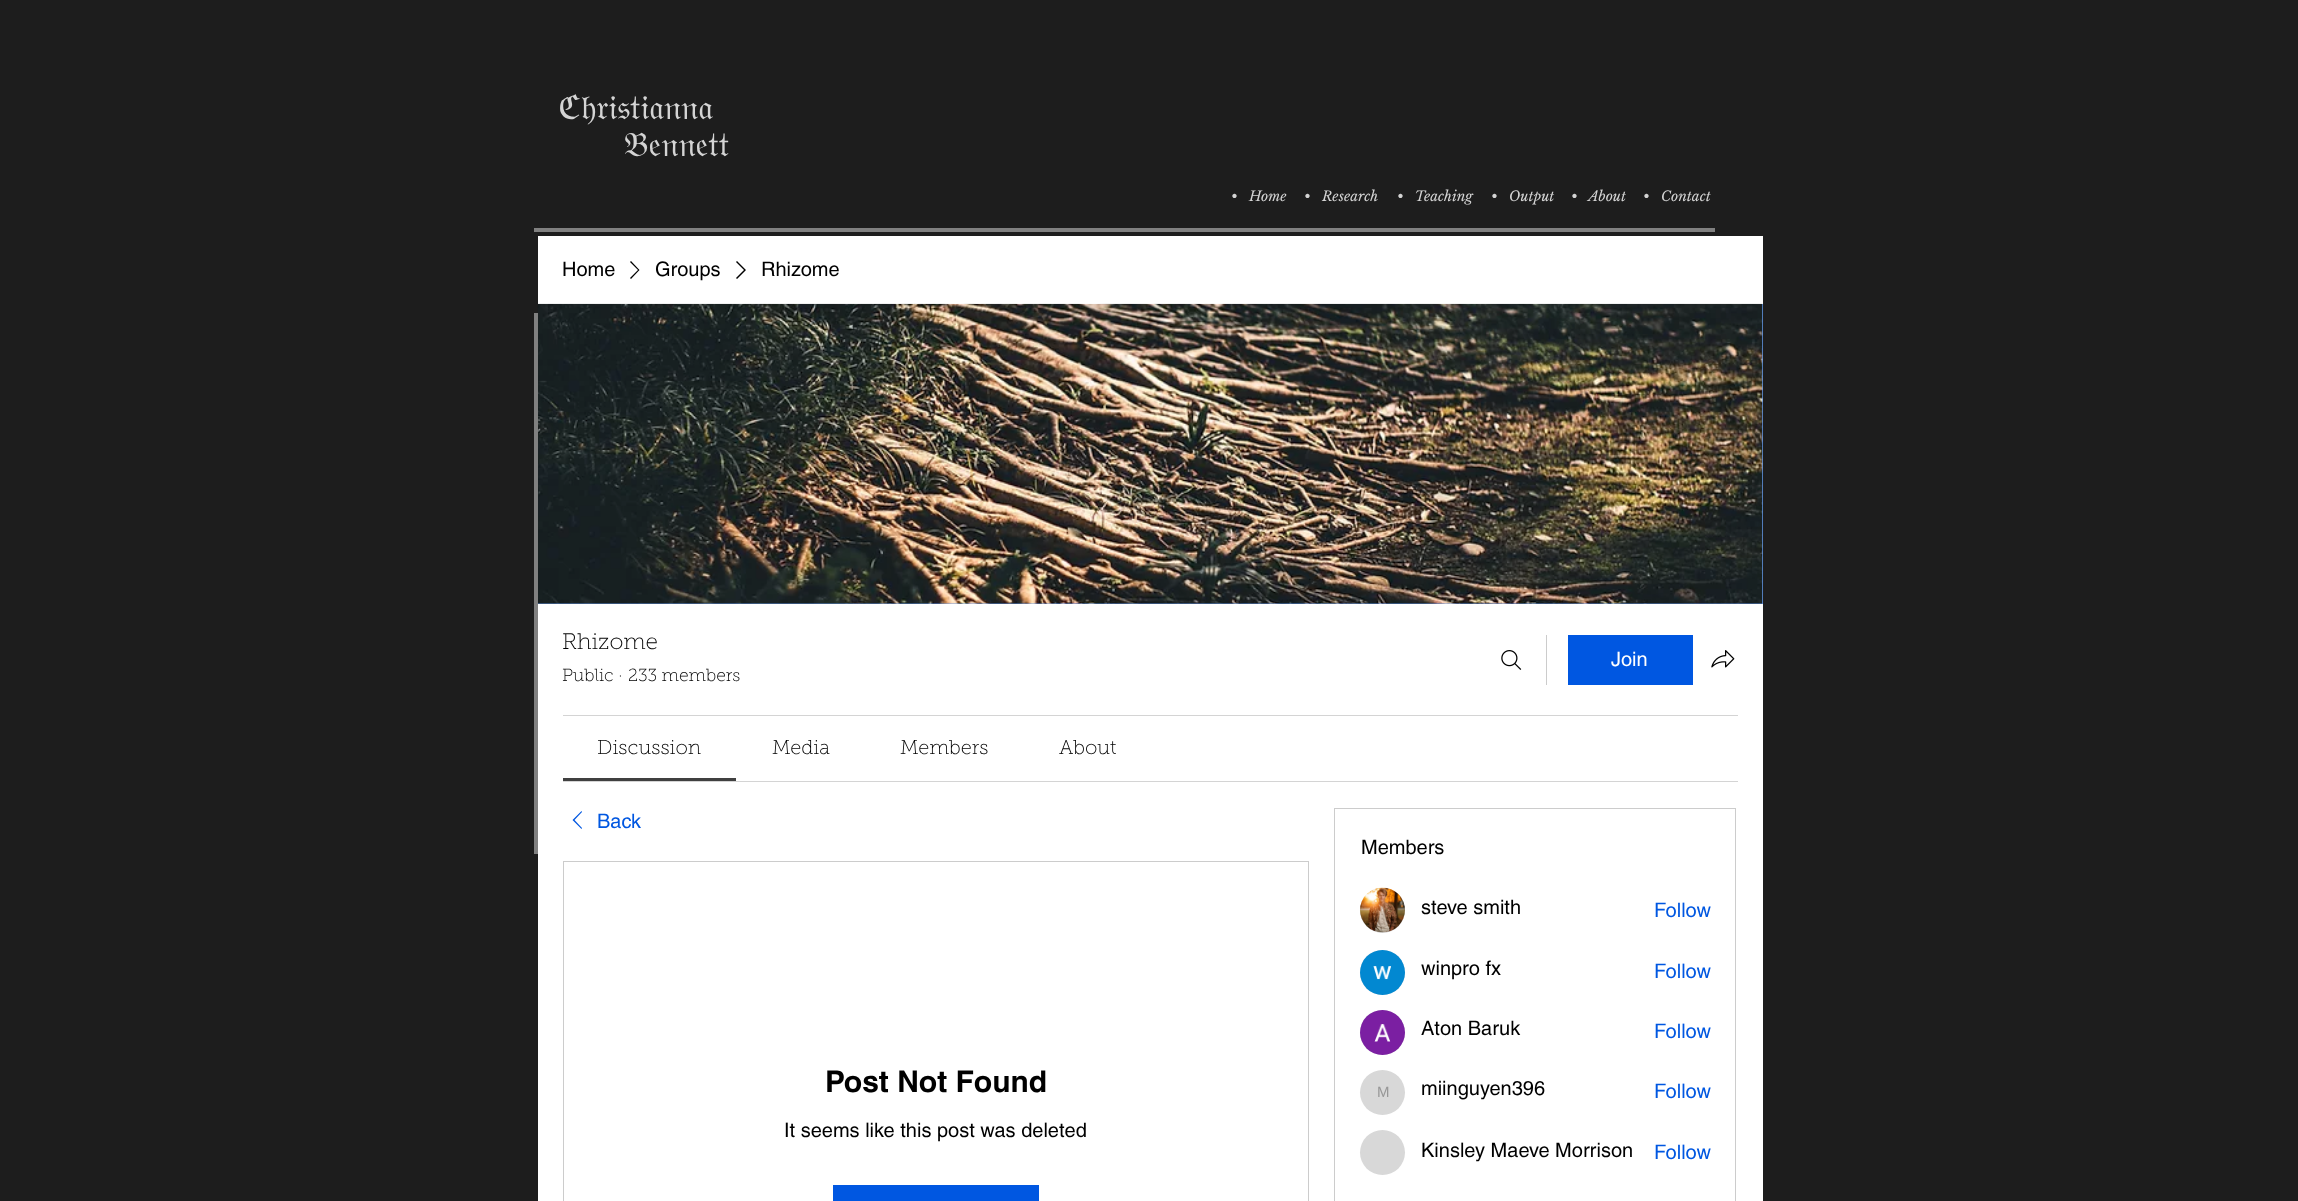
<svg xmlns="http://www.w3.org/2000/svg" width="2298" height="1201" viewBox="0 0 2298 1201">
  <rect width="100%" height="100%" fill="rgb(29,29,29)"/>
  <text x="558" y="119" font-family="Noto Sans" font-size="34" fill="rgb(212,212,212)">ℭ</text>
  <g font-family="FreeSerif" font-size="34" fill="rgb(212,212,212)">
    <text x="581" y="119">𝔥𝔯𝔦𝔰𝔱𝔦𝔞𝔫𝔫𝔞</text>
    <text x="624" y="156">𝔅𝔢𝔫𝔫𝔢𝔱𝔱</text>
  </g>
  <g font-family="Libre Baskerville" font-size="13.75" font-style="italic" fill="rgb(212,212,212)">
    <text x="1231" y="201" xml:space="preserve">•   Home</text>
    <text x="1304" y="201" xml:space="preserve">•   Research</text>
    <text x="1397" y="201" xml:space="preserve">•   Teaching</text>
    <text x="1491" y="201" xml:space="preserve">•   Output</text>
    <text x="1571" y="201" xml:space="preserve">•   About</text>
    <text x="1643" y="201" xml:space="preserve">•   Contact</text>
  </g>
  <rect x="534" y="228" width="1181" height="4" fill="rgb(128,128,128)"/>
  <rect x="538" y="236" width="1225" height="965" fill="rgb(255,255,255)"/>
  <rect x="538" y="304" width="1225" height="300" fill="rgb(102,155,237)"/>
  <image x="537" y="303" width="1226" height="301" href="pic1.png"/>
  <rect x="534" y="313" width="4" height="541" fill="rgb(128,128,128)"/>
  <text x="562" y="276" font-family="helvetica" font-size="20" fill="rgb(0,0,0)">Home</text>
  <path d="M631 261L639.5 270L631 279L630 278L638 270L630 262Z" fill="rgb(0,0,0)" fill-rule="evenodd"/>
  <text x="655" y="276" font-family="helvetica" font-size="20" fill="rgb(0,0,0)">Groups</text>
  <path d="M737 261L746 270L737 279L736 278L744 270L736 262Z" fill="rgb(0,0,0)" fill-rule="evenodd"/>
  <text x="761" y="276" font-family="helvetica" font-size="20" fill="rgb(0,0,0)">Rhizome</text>
  <text x="562" y="649" font-family="'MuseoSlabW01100'" font-size="22.5" font-weight="100" fill="rgb(0,0,0)">Rhizome</text>
  <g font-family="'MuseoSlabW01100'" font-size="17.5" font-weight="100" fill="rgb(0,0,0)">
    <text x="562" y="681">Public</text>
    <text x="618" y="681">·</text>
    <text x="628" y="681">233 members</text>
  </g>
  <image x="1501" y="650" width="21" height="20" href="pic2.png"/>
  <rect x="1546" y="635" width="1" height="50" fill="rgb(204,204,204)"/>
  <rect x="1568" y="635" width="125" height="50" fill="rgb(0,87,225)"/>
  <text x="1611" y="666" font-family="helvetica" font-size="20" fill="rgb(255,255,255)">Join</text>
  <image x="1711" y="650" width="24" height="18" href="pic3.png"/>
  <rect x="563" y="715" width="1175" height="1" fill="rgb(212,212,212)"/>
  <rect x="563" y="781" width="1175" height="1" fill="rgb(212,212,212)"/>
  <rect x="563" y="778" width="173" height="3" fill="rgb(64,64,64)"/>
  <g font-family="'MuseoSlabW01100'" font-size="20" font-weight="100" fill="rgb(0,0,0)">
    <text x="597" y="754">Discussion</text>
    <text x="772" y="754">Media</text>
    <text x="900" y="754">Members</text>
    <text x="1059" y="754">About</text>
  </g>
  <path d="M581.5 811L582 812L574.5 820L582 828L581.5 829L572.5 820Z" fill="rgb(0,87,225)" fill-rule="evenodd"/>
  <text x="597" y="828" font-family="helvetica" font-size="20" fill="rgb(0,87,225)">Back</text>
  <rect x="563.5" y="861.5" width="745" height="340" fill="none" stroke="rgb(204,204,204)"/>
  <text x="825" y="1092" font-family="helvetica" font-size="30" font-weight="bold" fill="rgb(0,0,0)">Post Not Found</text>
  <text x="784" y="1137" font-family="helvetica" font-size="20" fill="rgb(0,0,0)">It seems like this post was deleted</text>
  <rect x="833" y="1185" width="206" height="16" fill="rgb(0,87,225)"/>
  <rect x="1334.5" y="808.5" width="401" height="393" fill="none" stroke="rgb(204,204,204)"/>
  <text x="1361" y="854" font-family="helvetica" font-size="20" fill="rgb(0,0,0)">Members</text>
  <circle cx="1382.5" cy="910.5" r="22.5" fill="rgb(216,216,216)"/>
  <image x="1360" y="887" width="45" height="46" href="pic4.png"/>
  <text x="1421" y="914" font-family="helvetica" font-size="20" fill="rgb(0,0,0)">steve smith</text>
  <text x="1654" y="917" font-family="helvetica" font-size="20" fill="rgb(0,87,225)">Follow</text>
  <circle cx="1382.5" cy="972.5" r="22.5" fill="rgb(216,216,216)"/>
  <image x="1360" y="950" width="45" height="45" href="pic5.png"/>
  <text x="1421" y="975" font-family="helvetica" font-size="20" fill="rgb(0,0,0)">winpro fx</text>
  <text x="1654" y="978" font-family="helvetica" font-size="20" fill="rgb(0,87,225)">Follow</text>
  <circle cx="1382.5" cy="1032.5" r="22.5" fill="rgb(216,216,216)"/>
  <image x="1360" y="1010" width="45" height="45" href="pic6.png"/>
  <text x="1421" y="1035" font-family="helvetica" font-size="20" fill="rgb(0,0,0)">Aton Baruk</text>
  <text x="1654" y="1038" font-family="helvetica" font-size="20" fill="rgb(0,87,225)">Follow</text>
  <circle cx="1382.5" cy="1092.5" r="22.5" fill="rgb(216,216,216)"/>
  <text x="1377" y="1097" font-family="Liberation Sans" font-size="15" fill="rgb(151,151,151)">M</text>
  <text x="1421" y="1095" font-family="helvetica" font-size="20" fill="rgb(0,0,0)">miinguyen396</text>
  <text x="1654" y="1098" font-family="helvetica" font-size="20" fill="rgb(0,87,225)">Follow</text>
  <circle cx="1382.5" cy="1152.5" r="22.5" fill="rgb(216,216,216)"/>
  <text x="1421" y="1157" font-family="helvetica" font-size="20" fill="rgb(0,0,0)">Kinsley Maeve Morrison</text>
  <text x="1654" y="1159" font-family="helvetica" font-size="20" fill="rgb(0,87,225)">Follow</text>
</svg>
